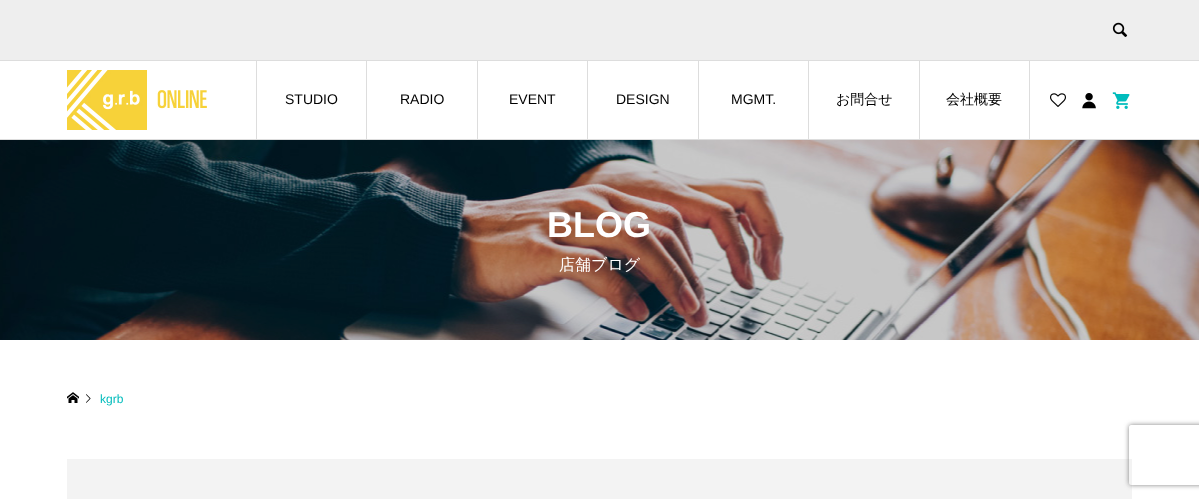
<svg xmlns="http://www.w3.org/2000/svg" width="1199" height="499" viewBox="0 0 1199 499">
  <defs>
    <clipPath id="clip1"><path d="M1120 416H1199V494H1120ZM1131 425H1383C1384 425 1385 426 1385 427V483C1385 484 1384 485 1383 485H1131C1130 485 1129 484 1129 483V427C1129 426 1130 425 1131 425Z" clip-rule="evenodd"/></clipPath>
  </defs>
  <rect width="100%" height="100%" fill="rgb(255,255,255)"/>
  <rect x="0" y="0" width="1199" height="60" fill="rgb(238,238,238)"/>
  <image x="1112" y="22" width="16" height="15" href="pic1.png"/>
  <rect x="0" y="60" width="1199" height="1" fill="rgb(221,221,221)"/>
  <rect x="0" y="139" width="1199" height="1" fill="rgb(221,221,221)"/>
  <image x="67" y="70" width="140" height="60" href="pic2.png"/>
  <rect x="366" y="60" width="1" height="80" fill="rgb(221,221,221)"/>
  <rect x="256" y="60" width="1" height="80" fill="rgb(221,221,221)"/>
  <text x="285" y="104" font-family="Liberation Sans" font-size="14" fill="rgb(0,0,0)">STUDIO</text>
  <rect x="477" y="60" width="1" height="80" fill="rgb(221,221,221)"/>
  <text x="400" y="104" font-family="Liberation Sans" font-size="14" fill="rgb(0,0,0)">RADIO</text>
  <rect x="587" y="60" width="1" height="80" fill="rgb(221,221,221)"/>
  <text x="509" y="104" font-family="Liberation Sans" font-size="14" fill="rgb(0,0,0)">EVENT</text>
  <rect x="698" y="60" width="1" height="80" fill="rgb(221,221,221)"/>
  <text x="616" y="104" font-family="Liberation Sans" font-size="14" fill="rgb(0,0,0)">DESIGN</text>
  <rect x="808" y="60" width="1" height="80" fill="rgb(221,221,221)"/>
  <text x="731" y="104" font-family="Liberation Sans" font-size="14" fill="rgb(0,0,0)">MGMT.</text>
  <rect x="919" y="60" width="1" height="80" fill="rgb(221,221,221)"/>
  <text x="836" y="104" font-family="WenQuanYi Zen Hei" font-size="14" font-weight="500" fill="rgb(0,0,0)">お問合せ</text>
  <rect x="1029" y="60" width="1" height="80" fill="rgb(221,221,221)"/>
  <text x="946" y="104" font-family="WenQuanYi Zen Hei" font-size="14" font-weight="500" fill="rgb(0,0,0)">会社概要</text>
  <image x="1050" y="93" width="16" height="14" href="pic3.png"/>
  <image x="1082" y="93" width="14" height="16" href="pic4.png"/>
  <image x="1112" y="92" width="18" height="17" href="pic5.png"/>
  <image x="0" y="140" width="1199" height="200" href="pic6.png"/>
  <text x="547" y="237" font-family="Liberation Sans" font-size="36" font-weight="bold" fill="rgb(255,255,255)">BLOG</text>
  <text x="559" y="270" font-family="WenQuanYi Zen Hei" font-size="16" font-weight="500" fill="rgb(255,255,255)">店舗ブログ</text>
  <image x="67" y="392" width="12" height="11" href="pic7.png"/>
  <image x="86" y="394" width="5" height="9" href="pic8.png"/>
  <text x="100" y="403" font-family="Liberation Sans" font-size="12" fill="rgb(0,188,188)">kgrb</text>
  <rect x="67" y="459" width="1065" height="40" fill="rgb(243,243,243)"/>
  <g clip-path="url(#clip1)">
    <rect x="1129" y="425" width="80" height="60" rx="2" fill="rgb(128,128,128)" filter="blur(2.5px)"/>
  </g>
</svg>
